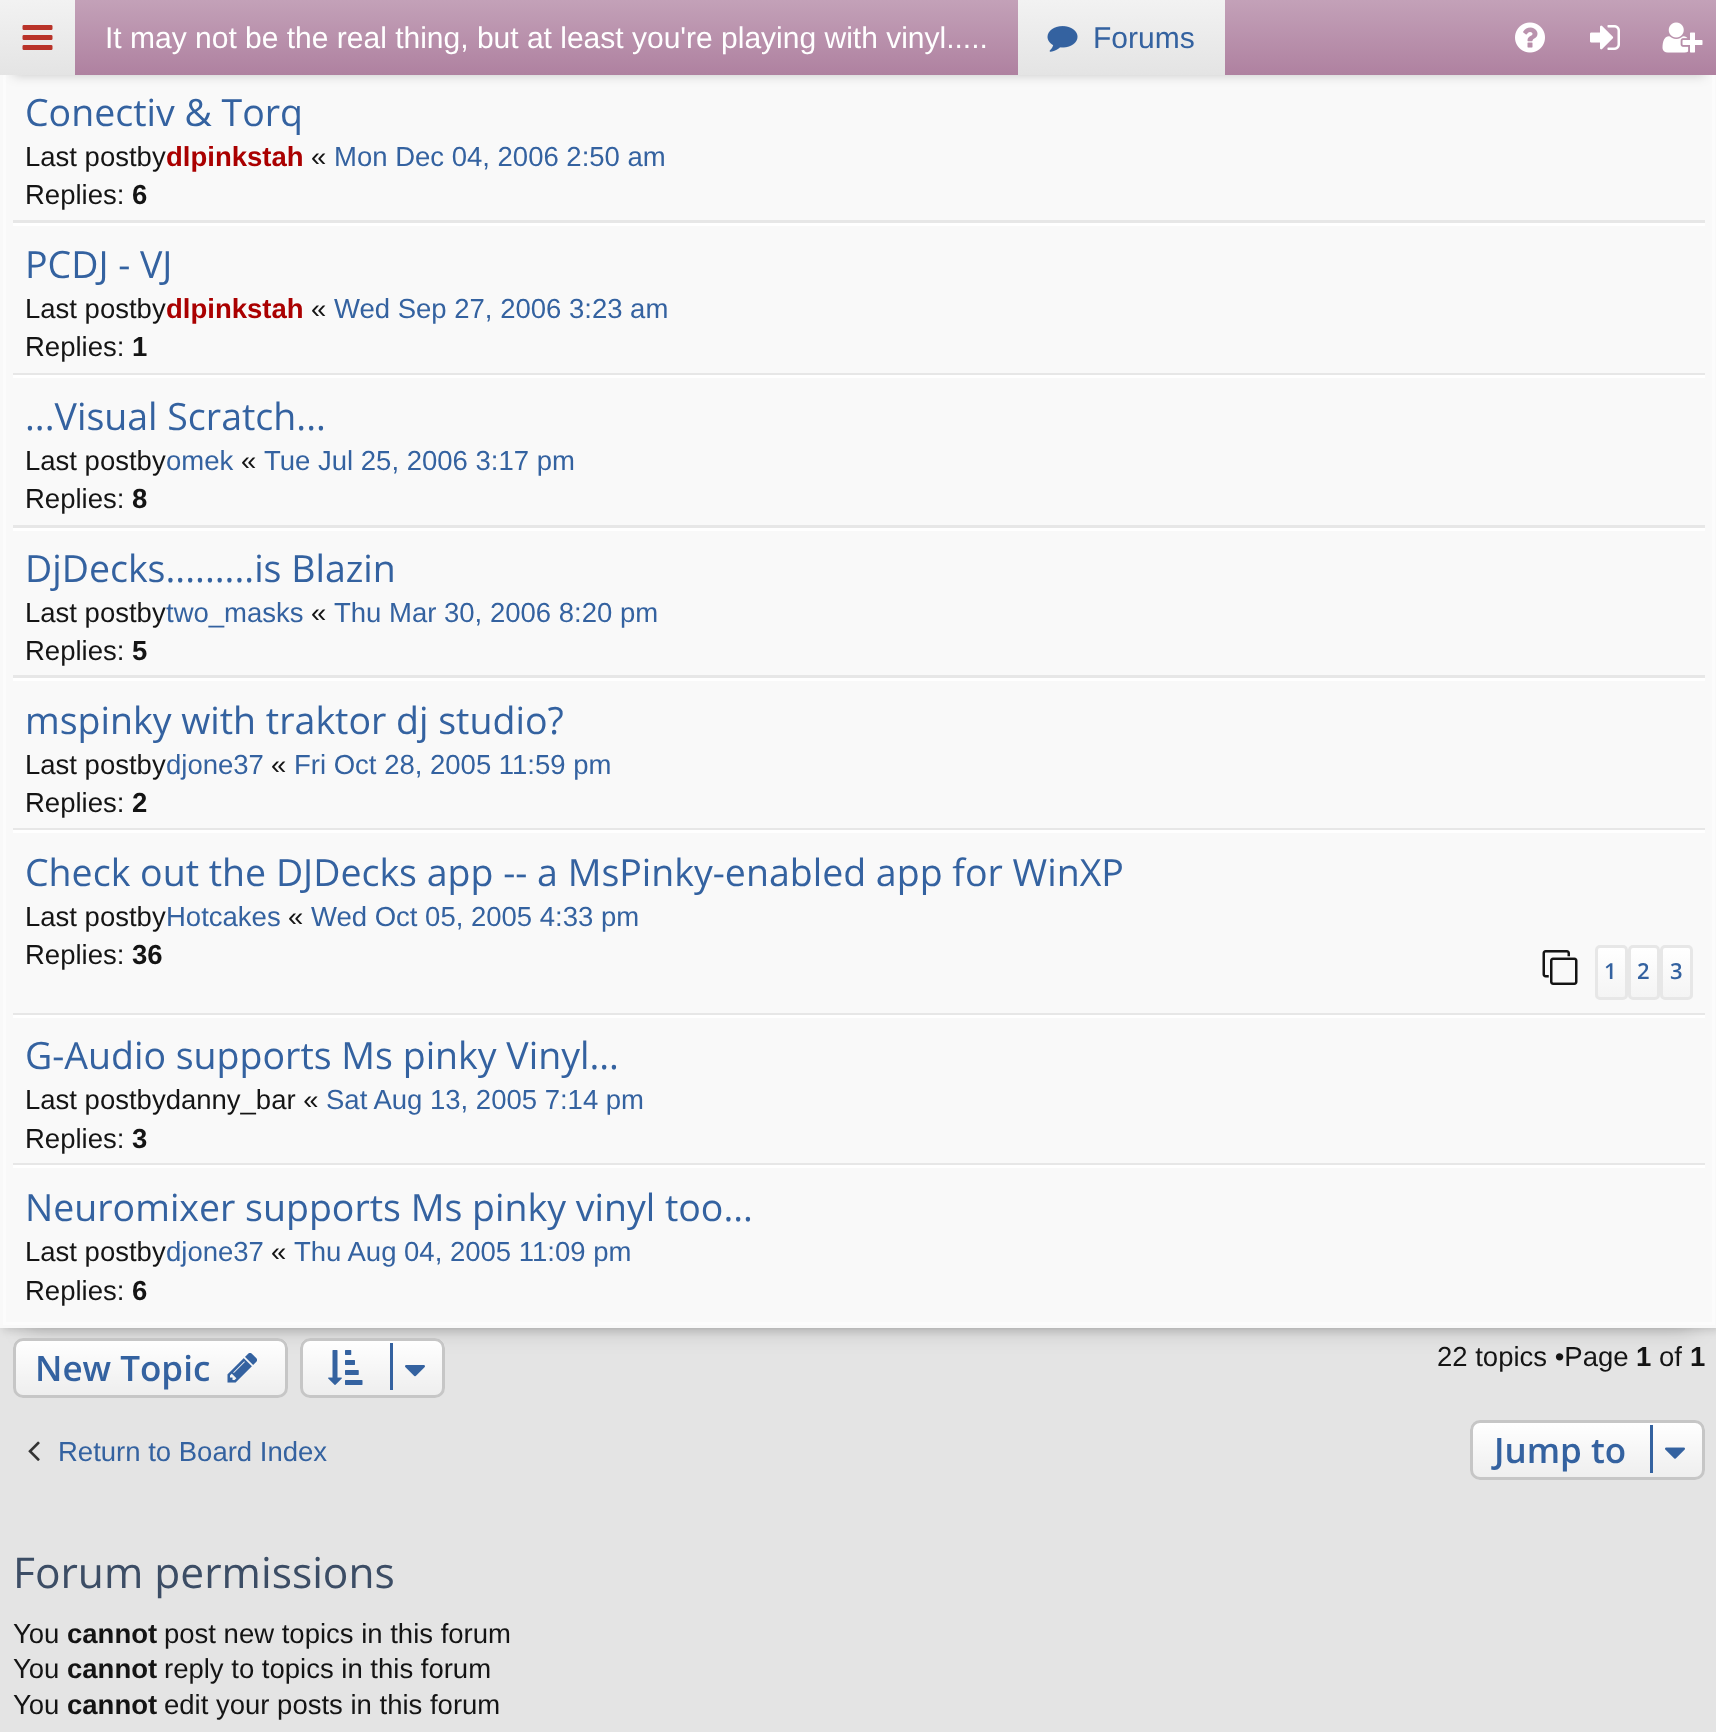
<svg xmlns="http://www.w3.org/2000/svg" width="1716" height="1732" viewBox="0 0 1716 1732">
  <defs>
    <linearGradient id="g1" gradientUnits="userSpaceOnUse" x1="859" y1="-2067" x2="859" y2="1325"><stop offset="0" stop-color="rgb(240,240,240)"/><stop offset="0.01" stop-color="rgb(237,237,237)"/><stop offset="0.04" stop-color="rgb(249,249,249)"/></linearGradient>
    <linearGradient id="g2" gradientUnits="userSpaceOnUse" x1="859" y1="0" x2="859" y2="75"><stop offset="0" stop-color="rgb(195,161,184)"/><stop offset="1" stop-color="rgb(175,129,160)"/></linearGradient>
    <linearGradient id="g3" gradientUnits="userSpaceOnUse" x1="37" y1="0" x2="38" y2="75"><stop offset="0" stop-color="rgb(242,242,242)"/><stop offset="1" stop-color="rgb(228,228,228)"/></linearGradient>
    <linearGradient id="g4" gradientUnits="userSpaceOnUse" x1="1121" y1="0" x2="1121" y2="75"><stop offset="0" stop-color="rgb(242,242,242)"/><stop offset="1" stop-color="rgb(228,228,228)"/></linearGradient>
    <clipPath id="clip1"><rect x="1595" y="945" width="33" height="55" rx="5"/></clipPath>
    <linearGradient id="g5" gradientUnits="userSpaceOnUse" x1="1611" y1="948" x2="1611" y2="998"><stop offset="0" stop-color="rgb(255,255,255)"/><stop offset="1" stop-color="rgb(244,244,244)"/></linearGradient>
    <clipPath id="clip2"><rect x="1628" y="945" width="32" height="55" rx="5"/></clipPath>
    <linearGradient id="g6" gradientUnits="userSpaceOnUse" x1="1644" y1="948" x2="1644" y2="998"><stop offset="0" stop-color="rgb(255,255,255)"/><stop offset="1" stop-color="rgb(244,244,244)"/></linearGradient>
    <clipPath id="clip3"><rect x="1660" y="945" width="33" height="55" rx="5"/></clipPath>
    <linearGradient id="g7" gradientUnits="userSpaceOnUse" x1="1676" y1="948" x2="1676" y2="998"><stop offset="0" stop-color="rgb(255,255,255)"/><stop offset="1" stop-color="rgb(244,244,244)"/></linearGradient>
    <clipPath id="clip4"><rect x="13" y="1338" width="275" height="60" rx="10"/></clipPath>
    <linearGradient id="g8" gradientUnits="userSpaceOnUse" x1="150" y1="1340" x2="150" y2="1395"><stop offset="0" stop-color="rgb(255,255,255)"/><stop offset="1" stop-color="rgb(255,255,255)" stop-opacity="0"/></linearGradient>
    <clipPath id="clip5"><rect x="300" y="1338" width="145" height="60" rx="10"/></clipPath>
    <linearGradient id="g9" gradientUnits="userSpaceOnUse" x1="373" y1="1340" x2="373" y2="1395"><stop offset="0" stop-color="rgb(255,255,255)"/><stop offset="1" stop-color="rgb(255,255,255)" stop-opacity="0"/></linearGradient>
    <clipPath id="clip6"><rect x="1470" y="1420" width="235" height="60" rx="10"/></clipPath>
    <linearGradient id="g10" gradientUnits="userSpaceOnUse" x1="1588" y1="1423" x2="1588" y2="1478"><stop offset="0" stop-color="rgb(255,255,255)"/><stop offset="1" stop-color="rgb(255,255,255)" stop-opacity="0"/></linearGradient>
  </defs>
  <rect width="100%" height="100%" fill="rgb(228,228,228)"/>
  <rect x="25" y="-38" width="1668" height="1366" fill="rgba(0,0,0,0.2)" filter="blur(12.5px)"/>
  <rect x="3" y="-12" width="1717" height="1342" fill="rgba(0,0,0,0.15)" filter="blur(4px)"/>
  <rect x="6" y="75" width="1706" height="1247" fill="url(#g1)"/>
  <rect x="4.5" y="-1.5" width="1709" height="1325" fill="none" stroke="rgb(252,252,252)" stroke-width="3"/>
  <rect x="1.5" y="-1.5" width="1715" height="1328" fill="none" stroke="rgb(249,249,249)" stroke-width="3"/>
  <rect x="13" y="25" width="1692" height="50" fill="rgba(0,0,0,0.2)" filter="blur(6px)"/>
  <rect x="75" y="0" width="1641" height="75" fill="url(#g2)"/>
  <rect x="0" y="0" width="75" height="75" fill="url(#g3)"/>
  <image x="22" y="25" width="31" height="25" href="pic1.png"/>
  <text x="105" y="48" font-family="Liberation Sans" font-size="30" fill="rgb(255,255,255)">It may not be the real thing, but at least you're playing with vinyl.....</text>
  <rect x="1018" y="0" width="207" height="75" fill="url(#g4)"/>
  <image x="1047" y="26" width="31" height="26" href="pic2.png"/>
  <text x="1093" y="48" font-family="Liberation Sans" font-size="30" fill="rgb(52,98,160)">Forums</text>
  <image x="1515" y="22" width="30" height="31" href="pic3.png"/>
  <image x="1590" y="25" width="30" height="25" href="pic4.png"/>
  <image x="1662" y="22" width="41" height="31" href="pic5.png"/>
  <rect x="13" y="220" width="1692" height="3" fill="rgb(231,231,231)"/>
  <text x="25" y="126" font-family="Open Sans" font-size="37.5" fill="rgb(52,98,160)">Conectiv &amp; Torq</text>
  <text x="25" y="166" font-family="Liberation Sans" font-size="27.5" fill="rgb(20,20,20)">Last postby</text>
  <text x="166" y="166" font-family="Liberation Sans" font-size="27.5" font-weight="bold" fill="rgb(170,0,0)">dlpinkstah</text>
  <text x="311" y="166" font-family="Liberation Sans" font-size="27.5" fill="rgb(20,20,20)">«</text>
  <text x="334" y="166" font-family="Liberation Sans" font-size="27.5" fill="rgb(52,98,160)">Mon Dec 04, 2006 2:50 am</text>
  <text x="25" y="204" font-family="Liberation Sans" font-size="27.5" fill="rgb(20,20,20)">Replies:</text>
  <text x="132" y="204" font-family="Liberation Sans" font-size="27.5" font-weight="bold" fill="rgb(20,20,20)">6</text>
  <rect x="13" y="223" width="1692" height="3" fill="rgb(255,255,255)"/>
  <rect x="13" y="373" width="1692" height="2" fill="rgb(231,231,231)"/>
  <text x="25" y="278" font-family="Open Sans" font-size="37.5" fill="rgb(52,98,160)">PCDJ - VJ</text>
  <text x="25" y="318" font-family="Liberation Sans" font-size="27.5" fill="rgb(20,20,20)">Last postby</text>
  <text x="166" y="318" font-family="Liberation Sans" font-size="27.5" font-weight="bold" fill="rgb(170,0,0)">dlpinkstah</text>
  <text x="311" y="318" font-family="Liberation Sans" font-size="27.5" fill="rgb(20,20,20)">«</text>
  <text x="334" y="318" font-family="Liberation Sans" font-size="27.5" fill="rgb(52,98,160)">Wed Sep 27, 2006 3:23 am</text>
  <text x="25" y="356" font-family="Liberation Sans" font-size="27.5" fill="rgb(20,20,20)">Replies:</text>
  <text x="132" y="356" font-family="Liberation Sans" font-size="27.5" font-weight="bold" fill="rgb(20,20,20)">1</text>
  <rect x="13" y="375" width="1692" height="3" fill="rgb(255,255,255)"/>
  <rect x="13" y="525" width="1692" height="3" fill="rgb(231,231,231)"/>
  <text x="25" y="430" font-family="Open Sans" font-size="37.5" fill="rgb(52,98,160)">...Visual Scratch...</text>
  <text x="25" y="470" font-family="Liberation Sans" font-size="27.5" fill="rgb(20,20,20)">Last postby</text>
  <text x="166" y="470" font-family="Liberation Sans" font-size="27.5" fill="rgb(52,98,160)">omek</text>
  <text x="241" y="470" font-family="Liberation Sans" font-size="27.5" fill="rgb(20,20,20)">«</text>
  <text x="264" y="470" font-family="Liberation Sans" font-size="27.5" fill="rgb(52,98,160)">Tue Jul 25, 2006 3:17 pm</text>
  <text x="25" y="508" font-family="Liberation Sans" font-size="27.5" fill="rgb(20,20,20)">Replies:</text>
  <text x="132" y="508" font-family="Liberation Sans" font-size="27.5" font-weight="bold" fill="rgb(20,20,20)">8</text>
  <rect x="13" y="528" width="1692" height="3" fill="rgb(255,255,255)"/>
  <rect x="13" y="675" width="1692" height="3" fill="rgb(231,231,231)"/>
  <text x="25" y="582" font-family="Open Sans" font-size="37.5" fill="rgb(52,98,160)">DjDecks.........is Blazin</text>
  <text x="25" y="622" font-family="Liberation Sans" font-size="27.5" fill="rgb(20,20,20)">Last postby</text>
  <text x="166" y="622" font-family="Liberation Sans" font-size="27.5" fill="rgb(52,98,160)">two_masks</text>
  <text x="311" y="622" font-family="Liberation Sans" font-size="27.5" fill="rgb(20,20,20)">«</text>
  <text x="334" y="622" font-family="Liberation Sans" font-size="27.5" fill="rgb(52,98,160)">Thu Mar 30, 2006 8:20 pm</text>
  <text x="25" y="660" font-family="Liberation Sans" font-size="27.5" fill="rgb(20,20,20)">Replies:</text>
  <text x="132" y="660" font-family="Liberation Sans" font-size="27.5" font-weight="bold" fill="rgb(20,20,20)">5</text>
  <rect x="13" y="678" width="1692" height="3" fill="rgb(255,255,255)"/>
  <rect x="13" y="828" width="1692" height="2" fill="rgb(231,231,231)"/>
  <text x="25" y="734" font-family="Open Sans" font-size="37.5" fill="rgb(52,98,160)">mspinky with traktor dj studio?</text>
  <text x="25" y="774" font-family="Liberation Sans" font-size="27.5" fill="rgb(20,20,20)">Last postby</text>
  <text x="166" y="774" font-family="Liberation Sans" font-size="27.5" fill="rgb(52,98,160)">djone37</text>
  <text x="271" y="774" font-family="Liberation Sans" font-size="27.5" fill="rgb(20,20,20)">«</text>
  <text x="294" y="774" font-family="Liberation Sans" font-size="27.5" fill="rgb(52,98,160)">Fri Oct 28, 2005 11:59 pm</text>
  <text x="25" y="812" font-family="Liberation Sans" font-size="27.5" fill="rgb(20,20,20)">Replies:</text>
  <text x="132" y="812" font-family="Liberation Sans" font-size="27.5" font-weight="bold" fill="rgb(20,20,20)">2</text>
  <rect x="13" y="830" width="1692" height="3" fill="rgb(255,255,255)"/>
  <rect x="13" y="1013" width="1692" height="2" fill="rgb(231,231,231)"/>
  <text x="25" y="886" font-family="Open Sans" font-size="37.5" fill="rgb(52,98,160)">Check out the DJDecks app -- a MsPinky-enabled app for WinXP</text>
  <text x="25" y="926" font-family="Liberation Sans" font-size="27.5" fill="rgb(20,20,20)">Last postby</text>
  <text x="166" y="926" font-family="Liberation Sans" font-size="27.5" fill="rgb(52,98,160)">Hotcakes</text>
  <text x="288" y="926" font-family="Liberation Sans" font-size="27.5" fill="rgb(20,20,20)">«</text>
  <text x="311" y="926" font-family="Liberation Sans" font-size="27.5" fill="rgb(52,98,160)">Wed Oct 05, 2005 4:33 pm</text>
  <text x="25" y="964" font-family="Liberation Sans" font-size="27.5" fill="rgb(20,20,20)">Replies:</text>
  <text x="132" y="964" font-family="Liberation Sans" font-size="27.5" font-weight="bold" fill="rgb(20,20,20)">36</text>
  <image x="1542" y="950" width="36" height="35" href="pic6.png"/>
  <g clip-path="url(#clip1)">
    <rect x="1595" y="948" width="33" height="50" fill="url(#g5)"/>
  </g>
  <rect x="1596.5" y="946.5" width="30" height="52" rx="3.5" fill="none" stroke="rgb(231,231,231)" stroke-width="3"/>
  <text x="1604" y="979" font-family="Open Sans" font-size="22" font-weight="600" fill="rgb(52,98,160)">1</text>
  <g clip-path="url(#clip2)">
    <rect x="1628" y="948" width="32" height="50" fill="url(#g6)"/>
  </g>
  <rect x="1629.5" y="946.5" width="29" height="52" rx="3.5" fill="none" stroke="rgb(231,231,231)" stroke-width="3"/>
  <text x="1637" y="979" font-family="Open Sans" font-size="22" font-weight="600" fill="rgb(52,98,160)">2</text>
  <g clip-path="url(#clip3)">
    <rect x="1660" y="948" width="33" height="50" fill="url(#g7)"/>
  </g>
  <rect x="1661.5" y="946.5" width="30" height="52" rx="3.5" fill="none" stroke="rgb(231,231,231)" stroke-width="3"/>
  <text x="1670" y="979" font-family="Open Sans" font-size="22" font-weight="600" fill="rgb(52,98,160)">3</text>
  <rect x="13" y="1015" width="1692" height="3" fill="rgb(255,255,255)"/>
  <rect x="13" y="1163" width="1692" height="2" fill="rgb(231,231,231)"/>
  <text x="25" y="1069" font-family="Open Sans" font-size="37.5" fill="rgb(52,98,160)">G-Audio supports Ms pinky Vinyl...</text>
  <text x="25" y="1109" font-family="Liberation Sans" font-size="27.5" fill="rgb(20,20,20)">Last postbydanny_bar «</text>
  <text x="326" y="1109" font-family="Liberation Sans" font-size="27.5" fill="rgb(52,98,160)">Sat Aug 13, 2005 7:14 pm</text>
  <text x="25" y="1148" font-family="Liberation Sans" font-size="27.5" fill="rgb(20,20,20)">Replies:</text>
  <text x="132" y="1148" font-family="Liberation Sans" font-size="27.5" font-weight="bold" fill="rgb(20,20,20)">3</text>
  <rect x="13" y="1165" width="1692" height="3" fill="rgb(255,255,255)"/>
  <text x="25" y="1221" font-family="Open Sans" font-size="37.5" fill="rgb(52,98,160)">Neuromixer supports Ms pinky vinyl too...</text>
  <text x="25" y="1261" font-family="Liberation Sans" font-size="27.5" fill="rgb(20,20,20)">Last postby</text>
  <text x="166" y="1261" font-family="Liberation Sans" font-size="27.5" fill="rgb(52,98,160)">djone37</text>
  <text x="271" y="1261" font-family="Liberation Sans" font-size="27.5" fill="rgb(20,20,20)">«</text>
  <text x="294" y="1261" font-family="Liberation Sans" font-size="27.5" fill="rgb(52,98,160)">Thu Aug 04, 2005 11:09 pm</text>
  <text x="25" y="1300" font-family="Liberation Sans" font-size="27.5" fill="rgb(20,20,20)">Replies:</text>
  <text x="132" y="1300" font-family="Liberation Sans" font-size="27.5" font-weight="bold" fill="rgb(20,20,20)">6</text>
  <rect x="13" y="1338" width="275" height="60" rx="10" fill="rgb(238,238,238)"/>
  <g clip-path="url(#clip4)">
    <rect x="13" y="1340" width="275" height="54" fill="url(#g8)"/>
  </g>
  <rect x="14.5" y="1339.5" width="272" height="57" rx="8.5" fill="none" stroke="rgb(198,198,198)" stroke-width="3"/>
  <text x="35" y="1381" font-family="Open Sans" font-size="35" font-weight="600" fill="rgb(52,98,160)">New Topic</text>
  <image x="227" y="1353" width="30" height="30" href="pic7.png"/>
  <rect x="300" y="1338" width="145" height="60" rx="10" fill="rgb(238,238,238)"/>
  <g clip-path="url(#clip5)">
    <rect x="300" y="1340" width="145" height="54" fill="url(#g9)"/>
  </g>
  <rect x="301.5" y="1339.5" width="142" height="57" rx="8.5" fill="none" stroke="rgb(198,198,198)" stroke-width="3"/>
  <image x="328" y="1350" width="35" height="35" href="pic8.png"/>
  <rect x="390" y="1343" width="3" height="47" fill="rgb(52,98,160)"/>
  <image x="405" y="1365" width="20" height="12" href="pic9.png"/>
  <text x="1437" y="1366" font-family="Liberation Sans" font-size="27.5" fill="rgb(20,20,20)">22 topics •Page</text>
  <text x="1636" y="1366" font-family="Liberation Sans" font-size="27.5" font-weight="bold" fill="rgb(20,20,20)">1</text>
  <text x="1659" y="1366" font-family="Liberation Sans" font-size="27.5" fill="rgb(20,20,20)">of</text>
  <text x="1690" y="1366" font-family="Liberation Sans" font-size="27.5" font-weight="bold" fill="rgb(20,20,20)">1</text>
  <image x="28" y="1441" width="12" height="20" href="pic10.png"/>
  <text x="58" y="1461" font-family="Liberation Sans" font-size="27.5" fill="rgb(52,98,160)">Return to Board Index</text>
  <rect x="1470" y="1420" width="235" height="60" rx="10" fill="rgb(238,238,238)"/>
  <g clip-path="url(#clip6)">
    <rect x="1470" y="1423" width="235" height="54" fill="url(#g10)"/>
  </g>
  <rect x="1471.5" y="1421.5" width="232" height="57" rx="8.5" fill="none" stroke="rgb(198,198,198)" stroke-width="3"/>
  <text x="1494" y="1463" font-family="Open Sans" font-size="35" font-weight="600" fill="rgb(52,98,160)">Jump to</text>
  <rect x="1650" y="1425" width="3" height="48" fill="rgb(52,98,160)"/>
  <image x="1665" y="1447" width="20" height="12" href="pic11.png"/>
  <text x="13" y="1588" font-family="Open Sans" font-size="42.5" fill="rgb(60,77,101)">Forum permissions</text>
  <text x="13" y="1643" font-family="Liberation Sans" font-size="27.5" fill="rgb(20,20,20)">You</text>
  <text x="67" y="1643" font-family="Liberation Sans" font-size="27.5" font-weight="bold" fill="rgb(20,20,20)">cannot</text>
  <g font-family="Liberation Sans" font-size="27.5" fill="rgb(20,20,20)">
    <text x="164" y="1643">post new topics in this forum</text>
    <text x="13" y="1678">You</text>
  </g>
  <text x="67" y="1678" font-family="Liberation Sans" font-size="27.5" font-weight="bold" fill="rgb(20,20,20)">cannot</text>
  <g font-family="Liberation Sans" font-size="27.5" fill="rgb(20,20,20)">
    <text x="164" y="1678">reply to topics in this forum</text>
    <text x="13" y="1714">You</text>
  </g>
  <text x="67" y="1714" font-family="Liberation Sans" font-size="27.5" font-weight="bold" fill="rgb(20,20,20)">cannot</text>
  <text x="164" y="1714" font-family="Liberation Sans" font-size="27.5" fill="rgb(20,20,20)">edit your posts in this forum</text>
</svg>
